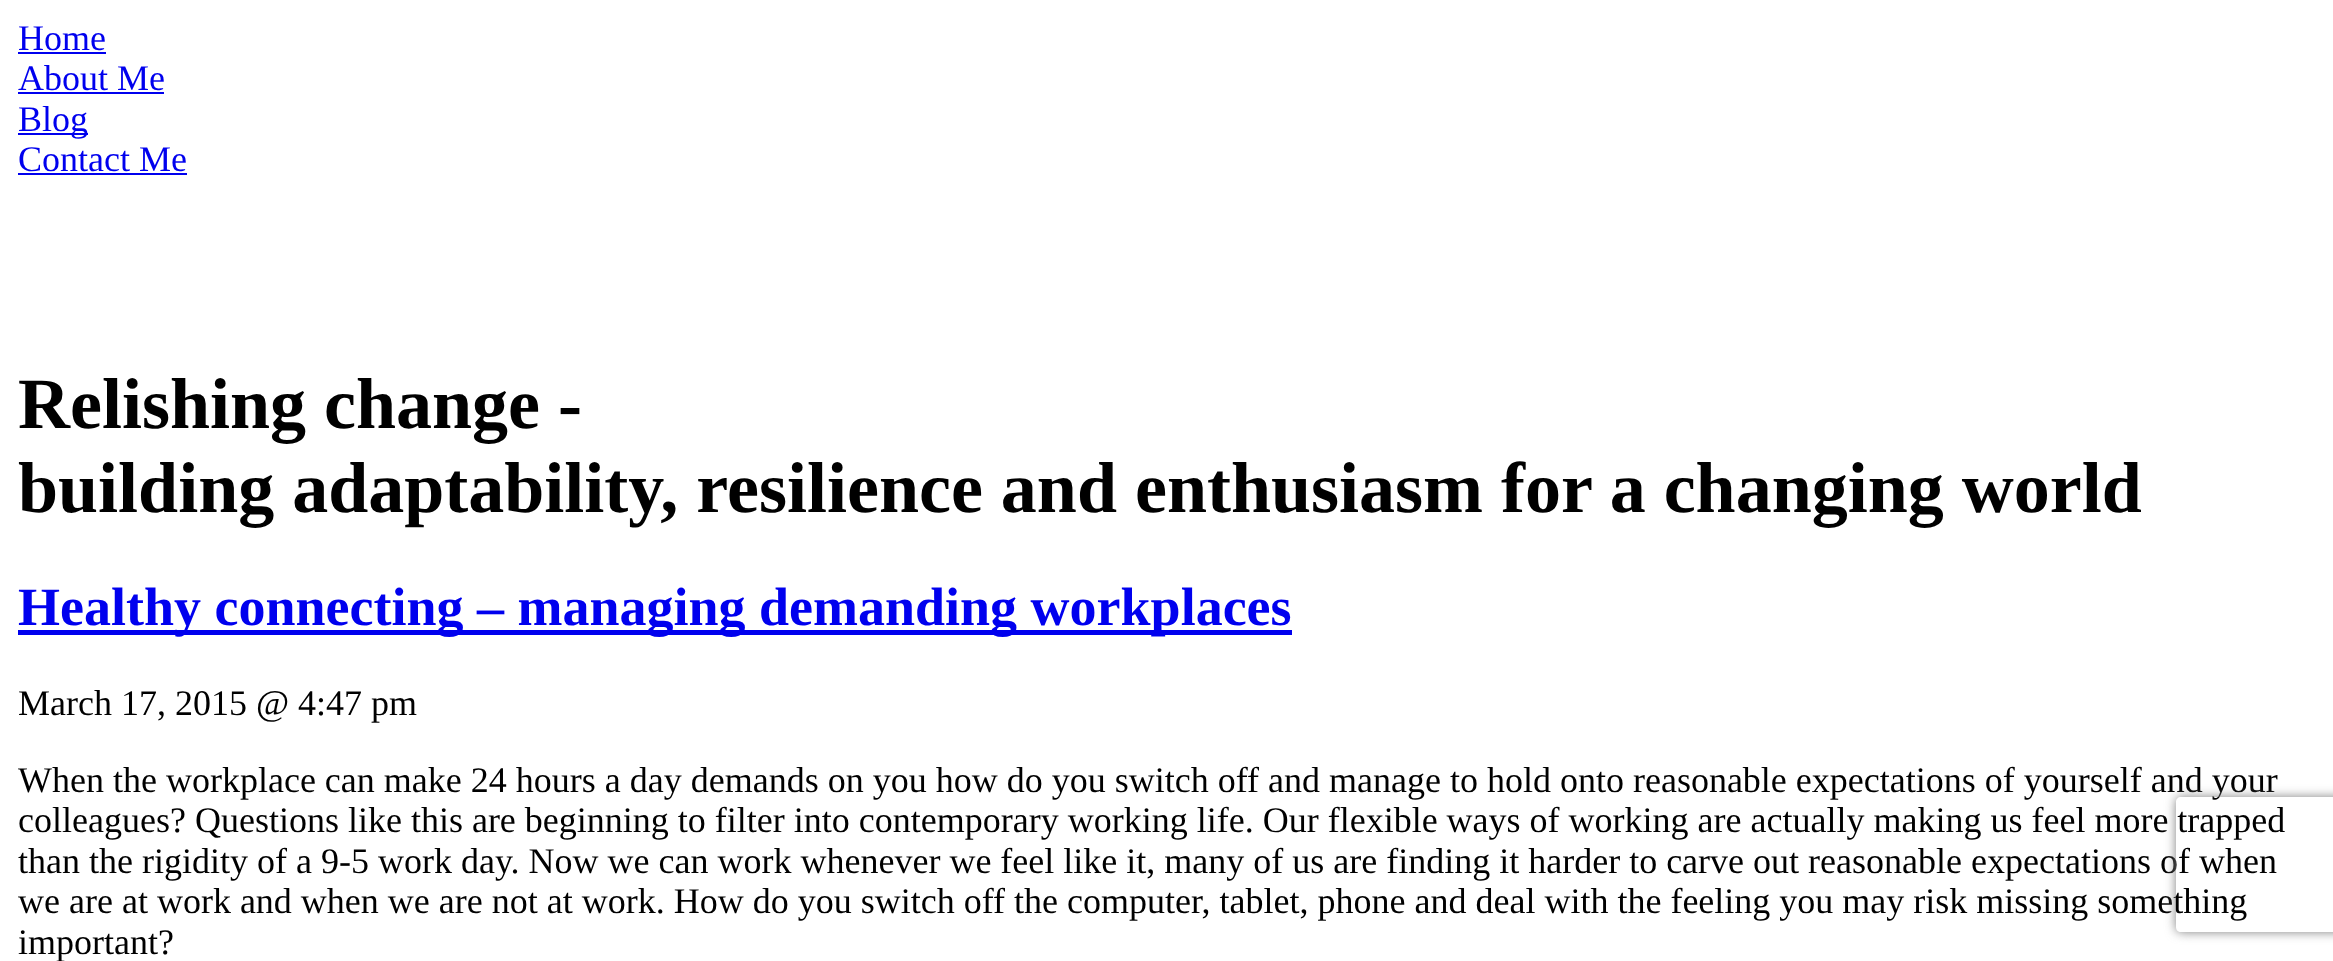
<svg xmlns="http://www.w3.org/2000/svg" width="2333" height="961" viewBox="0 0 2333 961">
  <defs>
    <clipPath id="clip1"><path d="M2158 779H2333V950H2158ZM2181 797H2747C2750 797 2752 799 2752 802V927C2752 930 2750 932 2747 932H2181C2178 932 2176 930 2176 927V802C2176 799 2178 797 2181 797Z" clip-rule="evenodd"/></clipPath>
  </defs>
  <rect width="100%" height="100%" fill="rgb(255,255,255)"/>
  <text x="18" y="50" font-family="Liberation Serif" font-size="36" fill="rgb(0,0,238)">Home</text>
  <rect x="18" y="52" width="88" height="2" fill="rgb(0,0,238)"/>
  <text x="18" y="90" font-family="Liberation Serif" font-size="36" fill="rgb(0,0,238)">About Me</text>
  <rect x="18" y="92" width="146" height="2" fill="rgb(0,0,238)"/>
  <rect x="18" y="133" width="70" height="2" fill="rgb(0,0,238)"/>
  <g font-family="Liberation Serif" font-size="36" fill="rgb(0,0,238)">
    <text>
      <tspan x="18" y="131">Blog</tspan>
      <tspan x="18" y="171">Contact Me</tspan>
    </text>
  </g>
  <rect x="18" y="173" width="169" height="2" fill="rgb(0,0,238)"/>
  <g font-family="Liberation Serif" font-size="72" font-weight="bold" fill="rgb(0,0,0)">
    <text>
      <tspan x="18" y="428">Relishing change -</tspan>
      <tspan x="18" y="512">building adaptability, resilience and enthusiasm for a changing world</tspan>
    </text>
  </g>
  <rect x="18" y="630" width="1274" height="5" fill="rgb(0,0,238)"/>
  <text x="18" y="625" font-family="Liberation Serif" font-size="54" font-weight="bold" fill="rgb(0,0,238)">Healthy connecting – managing demanding workplaces</text>
  <g font-family="Liberation Serif" font-size="36" fill="rgb(0,0,0)">
    <text x="18" y="715">March 17, 2015 @ 4:47 pm</text>
    <text>
      <tspan x="18" y="792">When the workplace can make 24 hours a day demands on you how do you switch off and manage to hold onto reasonable expectations of yourself and your</tspan>
      <tspan x="18" y="832">colleagues? Questions like this are beginning to filter into contemporary working life. Our flexible ways of working are actually making us feel more trapped</tspan>
      <tspan x="18" y="873">than the rigidity of a 9-5 work day. Now we can work whenever we feel like it, many of us are finding it harder to carve out reasonable expectations of when</tspan>
      <tspan x="18" y="913">we are at work and when we are not at work. How do you switch off the computer, tablet, phone and deal with the feeling you may risk missing something</tspan>
      <tspan x="18" y="954">important?</tspan>
    </text>
  </g>
  <g clip-path="url(#clip1)">
    <rect x="2176" y="797" width="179" height="135" rx="5" fill="rgb(128,128,128)" filter="blur(5.5px)"/>
  </g>
</svg>
